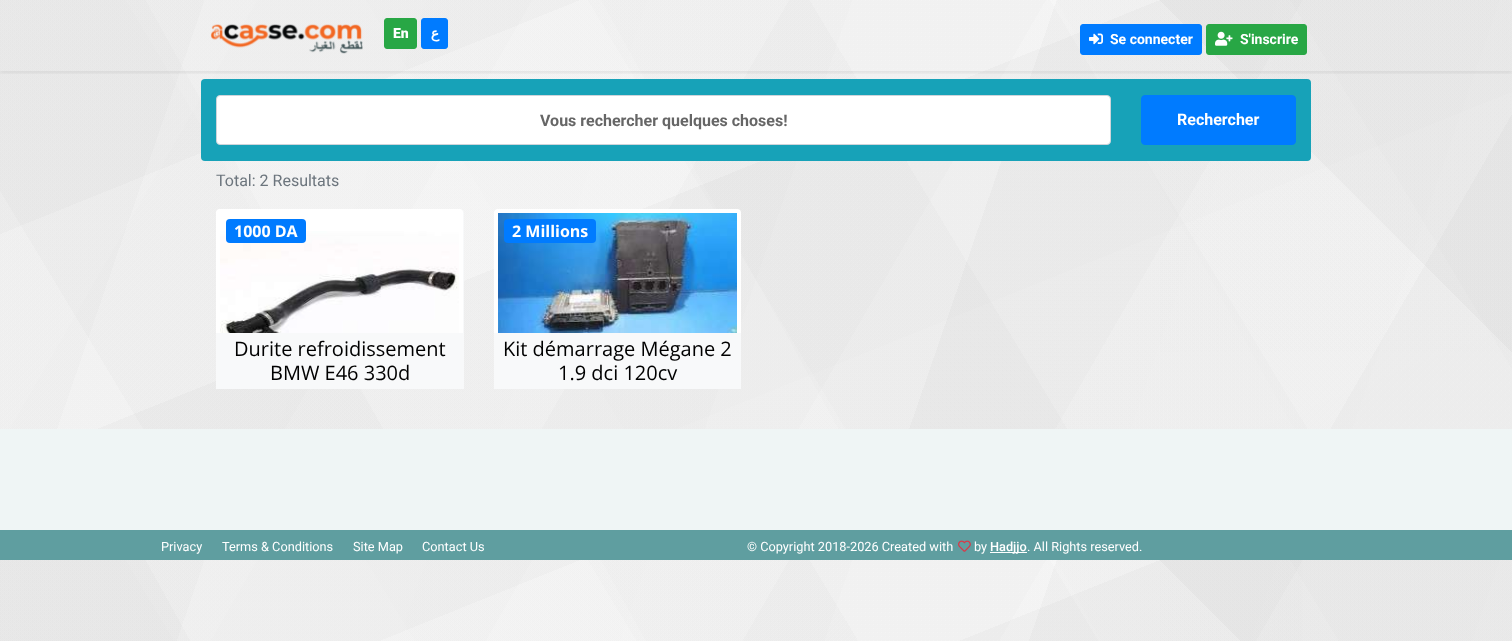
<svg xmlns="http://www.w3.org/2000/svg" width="1512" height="641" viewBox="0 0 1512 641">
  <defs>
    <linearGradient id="g1" gradientUnits="userSpaceOnUse" x1="1453" y1="-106" x2="59" y2="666"><stop offset="0" stop-color="rgb(252,252,252)"/><stop offset="0.25" stop-color="rgb(252,252,252)"/><stop offset="0.25" stop-color="rgb(253,253,253)"/><stop offset="0.5" stop-color="rgb(253,253,253)"/><stop offset="0.5" stop-color="rgb(255,255,255)"/><stop offset="0.75" stop-color="rgb(255,255,255)"/><stop offset="0.75" stop-color="rgb(252,252,252)"/><stop offset="1" stop-color="rgb(252,252,252)"/></linearGradient>
    <linearGradient id="g2" gradientUnits="userSpaceOnUse" x1="1453" y1="454" x2="59" y2="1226"><stop offset="0" stop-color="rgb(252,252,252)"/><stop offset="0.25" stop-color="rgb(252,252,252)"/><stop offset="0.25" stop-color="rgb(253,253,253)"/><stop offset="0.5" stop-color="rgb(253,253,253)"/><stop offset="0.5" stop-color="rgb(255,255,255)"/><stop offset="0.75" stop-color="rgb(255,255,255)"/><stop offset="0.75" stop-color="rgb(251,251,251)"/><stop offset="1" stop-color="rgb(251,251,251)"/></linearGradient>
    <linearGradient id="g3" gradientUnits="userSpaceOnUse" x1="77" y1="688" x2="1435" y2="-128"><stop offset="0" stop-color="rgb(224,224,224)" stop-opacity="0.03"/><stop offset="0.12" stop-color="rgb(224,224,224)" stop-opacity="0.03"/><stop offset="0.12" stop-color="rgb(97,97,97)" stop-opacity="0.03"/><stop offset="0.25" stop-color="rgb(97,97,97)" stop-opacity="0.03"/><stop offset="0.25" stop-color="rgb(143,143,143)" stop-opacity="0.03"/><stop offset="0.38" stop-color="rgb(143,143,143)" stop-opacity="0.03"/><stop offset="0.38" stop-color="rgb(110,110,110)" stop-opacity="0.03"/><stop offset="0.5" stop-color="rgb(110,110,110)" stop-opacity="0.03"/><stop offset="0.5" stop-color="rgb(34,34,34)" stop-opacity="0.03"/><stop offset="0.62" stop-color="rgb(34,34,34)" stop-opacity="0.03"/><stop offset="0.62" stop-color="rgb(155,155,155)" stop-opacity="0.03"/><stop offset="0.75" stop-color="rgb(155,155,155)" stop-opacity="0.03"/><stop offset="0.75" stop-color="rgb(249,249,249)" stop-opacity="0.03"/><stop offset="0.88" stop-color="rgb(249,249,249)" stop-opacity="0.03"/><stop offset="0.88" stop-color="rgb(179,179,179)" stop-opacity="0.03"/><stop offset="1" stop-color="rgb(179,179,179)" stop-opacity="0.03"/></linearGradient>
    <linearGradient id="g4" gradientUnits="userSpaceOnUse" x1="77" y1="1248" x2="1435" y2="432"><stop offset="0" stop-color="rgb(224,224,224)" stop-opacity="0.03"/><stop offset="0.12" stop-color="rgb(224,224,224)" stop-opacity="0.03"/><stop offset="0.12" stop-color="rgb(97,97,97)" stop-opacity="0.03"/><stop offset="0.25" stop-color="rgb(97,97,97)" stop-opacity="0.03"/><stop offset="0.25" stop-color="rgb(143,143,143)" stop-opacity="0.03"/><stop offset="0.38" stop-color="rgb(143,143,143)" stop-opacity="0.03"/><stop offset="0.38" stop-color="rgb(110,110,110)" stop-opacity="0.03"/><stop offset="0.5" stop-color="rgb(110,110,110)" stop-opacity="0.03"/><stop offset="0.5" stop-color="rgb(34,34,34)" stop-opacity="0.03"/><stop offset="0.62" stop-color="rgb(34,34,34)" stop-opacity="0.03"/><stop offset="0.62" stop-color="rgb(155,155,155)" stop-opacity="0.03"/><stop offset="0.75" stop-color="rgb(155,155,155)" stop-opacity="0.03"/><stop offset="0.75" stop-color="rgb(249,249,249)" stop-opacity="0.03"/><stop offset="0.88" stop-color="rgb(249,249,249)" stop-opacity="0.03"/><stop offset="0.88" stop-color="rgb(179,179,179)" stop-opacity="0.03"/><stop offset="1" stop-color="rgb(179,179,179)" stop-opacity="0.03"/></linearGradient>
    <linearGradient id="g5" gradientUnits="userSpaceOnUse" x1="238" y1="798" x2="1274" y2="-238"><stop offset="0" stop-color="rgb(214,214,214)" stop-opacity="0.03"/><stop offset="0.17" stop-color="rgb(214,214,214)" stop-opacity="0.03"/><stop offset="0.17" stop-color="rgb(255,255,255)" stop-opacity="0.03"/><stop offset="0.33" stop-color="rgb(255,255,255)" stop-opacity="0.03"/><stop offset="0.33" stop-color="rgb(250,250,250)" stop-opacity="0.03"/><stop offset="0.5" stop-color="rgb(250,250,250)" stop-opacity="0.03"/><stop offset="0.5" stop-color="rgb(231,231,231)" stop-opacity="0.03"/><stop offset="0.67" stop-color="rgb(231,231,231)" stop-opacity="0.03"/><stop offset="0.67" stop-color="rgb(241,241,241)" stop-opacity="0.03"/><stop offset="0.83" stop-color="rgb(241,241,241)" stop-opacity="0.03"/><stop offset="0.83" stop-color="rgb(31,31,31)" stop-opacity="0.03"/><stop offset="1" stop-color="rgb(31,31,31)" stop-opacity="0.03"/></linearGradient>
    <linearGradient id="g6" gradientUnits="userSpaceOnUse" x1="238" y1="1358" x2="1274" y2="322"><stop offset="0" stop-color="rgb(214,214,214)" stop-opacity="0.03"/><stop offset="0.17" stop-color="rgb(214,214,214)" stop-opacity="0.03"/><stop offset="0.17" stop-color="rgb(255,255,255)" stop-opacity="0.03"/><stop offset="0.33" stop-color="rgb(255,255,255)" stop-opacity="0.03"/><stop offset="0.33" stop-color="rgb(250,250,250)" stop-opacity="0.03"/><stop offset="0.5" stop-color="rgb(250,250,250)" stop-opacity="0.03"/><stop offset="0.5" stop-color="rgb(231,231,231)" stop-opacity="0.03"/><stop offset="0.67" stop-color="rgb(231,231,231)" stop-opacity="0.03"/><stop offset="0.67" stop-color="rgb(241,241,241)" stop-opacity="0.03"/><stop offset="0.83" stop-color="rgb(241,241,241)" stop-opacity="0.03"/><stop offset="0.83" stop-color="rgb(31,31,31)" stop-opacity="0.03"/><stop offset="1" stop-color="rgb(31,31,31)" stop-opacity="0.03"/></linearGradient>
    <linearGradient id="g7" gradientUnits="userSpaceOnUse" x1="68" y1="-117" x2="1444" y2="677"><stop offset="0" stop-color="rgb(106,106,106)" stop-opacity="0.03"/><stop offset="0.14" stop-color="rgb(106,106,106)" stop-opacity="0.03"/><stop offset="0.14" stop-color="rgb(67,67,67)" stop-opacity="0.03"/><stop offset="0.29" stop-color="rgb(67,67,67)" stop-opacity="0.03"/><stop offset="0.29" stop-color="rgb(134,134,134)" stop-opacity="0.03"/><stop offset="0.43" stop-color="rgb(134,134,134)" stop-opacity="0.03"/><stop offset="0.43" stop-color="rgb(19,19,19)" stop-opacity="0.03"/><stop offset="0.57" stop-color="rgb(19,19,19)" stop-opacity="0.03"/><stop offset="0.57" stop-color="rgb(101,101,101)" stop-opacity="0.03"/><stop offset="0.71" stop-color="rgb(101,101,101)" stop-opacity="0.03"/><stop offset="0.71" stop-color="rgb(205,205,205)" stop-opacity="0.03"/><stop offset="0.86" stop-color="rgb(205,205,205)" stop-opacity="0.03"/><stop offset="0.86" stop-color="rgb(53,53,53)" stop-opacity="0.03"/><stop offset="1" stop-color="rgb(53,53,53)" stop-opacity="0.03"/></linearGradient>
    <linearGradient id="g8" gradientUnits="userSpaceOnUse" x1="68" y1="443" x2="1444" y2="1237"><stop offset="0" stop-color="rgb(106,106,106)" stop-opacity="0.03"/><stop offset="0.14" stop-color="rgb(106,106,106)" stop-opacity="0.03"/><stop offset="0.14" stop-color="rgb(67,67,67)" stop-opacity="0.03"/><stop offset="0.29" stop-color="rgb(67,67,67)" stop-opacity="0.03"/><stop offset="0.29" stop-color="rgb(134,134,134)" stop-opacity="0.03"/><stop offset="0.43" stop-color="rgb(134,134,134)" stop-opacity="0.03"/><stop offset="0.43" stop-color="rgb(19,19,19)" stop-opacity="0.03"/><stop offset="0.57" stop-color="rgb(19,19,19)" stop-opacity="0.03"/><stop offset="0.57" stop-color="rgb(101,101,101)" stop-opacity="0.03"/><stop offset="0.71" stop-color="rgb(101,101,101)" stop-opacity="0.03"/><stop offset="0.71" stop-color="rgb(205,205,205)" stop-opacity="0.03"/><stop offset="0.86" stop-color="rgb(205,205,205)" stop-opacity="0.03"/><stop offset="0.86" stop-color="rgb(53,53,53)" stop-opacity="0.03"/><stop offset="1" stop-color="rgb(53,53,53)" stop-opacity="0.03"/></linearGradient>
    <linearGradient id="g9" gradientUnits="userSpaceOnUse" x1="-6.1" y1="18" x2="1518" y2="542"><stop offset="0" stop-color="rgb(33,33,33)" stop-opacity="0.03"/><stop offset="0.12" stop-color="rgb(33,33,33)" stop-opacity="0.03"/><stop offset="0.12" stop-color="rgb(147,147,147)" stop-opacity="0.03"/><stop offset="0.25" stop-color="rgb(147,147,147)" stop-opacity="0.03"/><stop offset="0.25" stop-color="rgb(131,131,131)" stop-opacity="0.03"/><stop offset="0.38" stop-color="rgb(131,131,131)" stop-opacity="0.03"/><stop offset="0.38" stop-color="rgb(151,151,151)" stop-opacity="0.03"/><stop offset="0.5" stop-color="rgb(151,151,151)" stop-opacity="0.03"/><stop offset="0.5" stop-color="rgb(211,211,211)" stop-opacity="0.03"/><stop offset="0.62" stop-color="rgb(211,211,211)" stop-opacity="0.03"/><stop offset="0.62" stop-color="rgb(39,39,39)" stop-opacity="0.03"/><stop offset="0.75" stop-color="rgb(39,39,39)" stop-opacity="0.03"/><stop offset="0.75" stop-color="rgb(55,55,55)" stop-opacity="0.03"/><stop offset="0.88" stop-color="rgb(55,55,55)" stop-opacity="0.03"/><stop offset="0.88" stop-color="rgb(82,82,82)" stop-opacity="0.03"/><stop offset="1" stop-color="rgb(82,82,82)" stop-opacity="0.03"/></linearGradient>
    <linearGradient id="g10" gradientUnits="userSpaceOnUse" x1="-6.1" y1="578" x2="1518" y2="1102"><stop offset="0" stop-color="rgb(33,33,33)" stop-opacity="0.03"/><stop offset="0.12" stop-color="rgb(33,33,33)" stop-opacity="0.03"/><stop offset="0.12" stop-color="rgb(147,147,147)" stop-opacity="0.03"/><stop offset="0.25" stop-color="rgb(147,147,147)" stop-opacity="0.03"/><stop offset="0.25" stop-color="rgb(131,131,131)" stop-opacity="0.03"/><stop offset="0.38" stop-color="rgb(131,131,131)" stop-opacity="0.03"/><stop offset="0.38" stop-color="rgb(151,151,151)" stop-opacity="0.03"/><stop offset="0.5" stop-color="rgb(151,151,151)" stop-opacity="0.03"/><stop offset="0.5" stop-color="rgb(211,211,211)" stop-opacity="0.03"/><stop offset="0.62" stop-color="rgb(211,211,211)" stop-opacity="0.03"/><stop offset="0.62" stop-color="rgb(39,39,39)" stop-opacity="0.03"/><stop offset="0.75" stop-color="rgb(39,39,39)" stop-opacity="0.03"/><stop offset="0.75" stop-color="rgb(55,55,55)" stop-opacity="0.03"/><stop offset="0.88" stop-color="rgb(55,55,55)" stop-opacity="0.03"/><stop offset="0.88" stop-color="rgb(82,82,82)" stop-opacity="0.03"/><stop offset="1" stop-color="rgb(82,82,82)" stop-opacity="0.03"/></linearGradient>
    <linearGradient id="g11" gradientUnits="userSpaceOnUse" x1="553" y1="-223" x2="959" y2="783"><stop offset="0" stop-color="rgb(84,84,84)" stop-opacity="0.03"/><stop offset="0.2" stop-color="rgb(84,84,84)" stop-opacity="0.03"/><stop offset="0.2" stop-color="rgb(219,219,219)" stop-opacity="0.03"/><stop offset="0.4" stop-color="rgb(219,219,219)" stop-opacity="0.03"/><stop offset="0.4" stop-color="rgb(54,54,54)" stop-opacity="0.03"/><stop offset="0.6" stop-color="rgb(54,54,54)" stop-opacity="0.03"/><stop offset="0.6" stop-color="rgb(99,99,99)" stop-opacity="0.03"/><stop offset="0.8" stop-color="rgb(99,99,99)" stop-opacity="0.03"/><stop offset="0.8" stop-color="rgb(92,92,92)" stop-opacity="0.03"/><stop offset="1" stop-color="rgb(92,92,92)" stop-opacity="0.03"/></linearGradient>
    <linearGradient id="g12" gradientUnits="userSpaceOnUse" x1="553" y1="337" x2="959" y2="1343"><stop offset="0" stop-color="rgb(84,84,84)" stop-opacity="0.03"/><stop offset="0.2" stop-color="rgb(84,84,84)" stop-opacity="0.03"/><stop offset="0.2" stop-color="rgb(219,219,219)" stop-opacity="0.03"/><stop offset="0.4" stop-color="rgb(219,219,219)" stop-opacity="0.03"/><stop offset="0.4" stop-color="rgb(54,54,54)" stop-opacity="0.03"/><stop offset="0.6" stop-color="rgb(54,54,54)" stop-opacity="0.03"/><stop offset="0.6" stop-color="rgb(99,99,99)" stop-opacity="0.03"/><stop offset="0.8" stop-color="rgb(99,99,99)" stop-opacity="0.03"/><stop offset="0.8" stop-color="rgb(92,92,92)" stop-opacity="0.03"/><stop offset="1" stop-color="rgb(92,92,92)" stop-opacity="0.03"/></linearGradient>
    <clipPath id="clip1"><rect x="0" y="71" width="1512" height="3"/></clipPath>
  </defs>
  <rect width="100%" height="100%" fill="rgb(255,255,255)"/>
  <rect x="0" y="0" width="1512" height="429" fill="url(#g1)"/>
  <rect x="0" y="560" width="1512" height="81" fill="url(#g2)"/>
  <rect x="0" y="0" width="1512" height="429" fill="url(#g3)"/>
  <rect x="0" y="560" width="1512" height="81" fill="url(#g4)"/>
  <rect x="1160" y="0" width="352" height="352" fill="url(#g5)"/>
  <rect x="1160" y="560" width="352" height="81" fill="url(#g6)"/>
  <rect x="0" y="0" width="1512" height="429" fill="url(#g7)"/>
  <rect x="0" y="560" width="1302" height="81" fill="url(#g8)"/>
  <rect x="0" y="0" width="1512" height="429" fill="url(#g9)"/>
  <rect x="0" y="560" width="1512" height="81" fill="url(#g10)"/>
  <rect x="0" y="0" width="1512" height="429" fill="url(#g11)"/>
  <rect x="0" y="560" width="1512" height="81" fill="url(#g12)"/>
  <g clip-path="url(#clip1)">
    <rect x="0" y="2" width="1512" height="71" fill="rgba(0,0,0,0.07)" filter="blur(2px)"/>
  </g>
  <image x="210" y="24" width="153" height="30" href="pic1.png"/>
  <rect x="384.5" y="18.5" width="32" height="30" rx="2.5" fill="rgb(40,167,69)" stroke="rgb(40,167,69)"/>
  <text x="393" y="38" font-family="Roboto" font-size="14" font-weight="900" fill="rgb(255,255,255)">En</text>
  <rect x="421.5" y="18.5" width="26" height="30" rx="2.5" fill="rgb(0,123,255)" stroke="rgb(0,123,255)"/>
  <text x="439" y="38" font-family="DejaVu Sans" font-size="14" font-weight="bold" direction="rtl" fill="rgb(255,255,255)">ع</text>
  <rect x="1080.5" y="24.5" width="121" height="30" rx="2.5" fill="rgb(0,123,255)" stroke="rgb(0,123,255)"/>
  <image x="1089" y="33" width="14" height="12" href="pic2.png"/>
  <text x="1110" y="44" font-family="Roboto" font-size="14" font-weight="bold" fill="rgb(255,255,255)">Se connecter</text>
  <rect x="1206.5" y="24.5" width="100" height="30" rx="2.5" fill="rgb(40,167,69)" stroke="rgb(40,167,69)"/>
  <image x="1215" y="31" width="18" height="15" href="pic3.png"/>
  <text x="1240" y="44" font-family="Roboto" font-size="14" font-weight="bold" fill="rgb(255,255,255)">S'inscrire</text>
  <rect x="201" y="79" width="1110" height="82" rx="4" fill="rgb(23,162,184)"/>
  <rect x="216.5" y="95.5" width="894" height="49" rx="3.5" fill="rgb(255,255,255)" stroke="rgb(206,212,218)"/>
  <text x="540" y="126" font-family="Roboto" font-size="16" font-weight="bold" fill="rgb(102,102,102)">Vous rechercher quelques choses!</text>
  <rect x="1141.5" y="95.5" width="154" height="49" rx="3.5" fill="rgb(0,123,255)" stroke="rgb(0,123,255)"/>
  <text x="1177" y="125" font-family="Roboto" font-size="16" font-weight="bold" fill="rgb(255,255,255)">Rechercher</text>
  <text x="216" y="186" font-family="Roboto" font-size="16" fill="rgb(108,117,125)">Total: 2 Resultats</text>
  <path d="M220 209H460C462 209 464 211 464 213V389H216V213C216 211 218 209 220 209Z" fill="rgb(248,249,250)"/>
  <rect x="216" y="209" width="247" height="180" rx="4" fill="rgb(255,255,255)"/>
  <image x="220" y="231" width="239" height="102" href="pic4.png"/>
  <rect x="226" y="219" width="80" height="24" rx="4" fill="rgb(0,123,255)"/>
  <text x="234" y="237" font-family="Open Sans" font-size="16" font-weight="bold" fill="rgb(255,255,255)">1000 DA</text>
  <rect x="216" y="333" width="247" height="56" fill="rgb(248,249,250)"/>
  <g font-family="Open Sans" font-size="20" fill="rgb(0,0,0)">
    <text x="234" y="356">Durite refroidissement</text>
    <text x="270" y="380">BMW E46 330d</text>
  </g>
  <rect x="494" y="209" width="247" height="180" rx="4" fill="rgb(255,255,255)"/>
  <image x="498" y="213" width="239" height="120" href="pic5.png"/>
  <rect x="504" y="219" width="92" height="24" rx="4" fill="rgb(0,123,255)"/>
  <text x="512" y="237" font-family="Open Sans" font-size="16" font-weight="bold" fill="rgb(255,255,255)">2 Millions</text>
  <rect x="494" y="333" width="247" height="56" fill="rgb(248,249,250)"/>
  <g font-family="Open Sans" font-size="20" fill="rgb(0,0,0)">
    <text x="503" y="356">Kit démarrage Mégane 2</text>
    <text x="558" y="380">1.9 dci 120cv</text>
  </g>
  <rect x="0" y="429" width="1512" height="101" fill="rgb(239,245,245)"/>
  <rect x="0" y="530" width="1512" height="30" fill="rgb(95,158,160)"/>
  <g font-family="Roboto" font-size="12.75" fill="rgb(255,255,255)">
    <text x="161" y="551">Privacy</text>
    <text x="222" y="551">Terms &amp; Conditions</text>
    <text x="353" y="551">Site Map</text>
    <text x="422" y="551">Contact Us</text>
    <text x="747" y="551">© Copyright 2018-2026 Created with</text>
  </g>
  <image x="958" y="540" width="13" height="12" href="pic6.png"/>
  <text x="974" y="551" font-family="Roboto" font-size="12.75" fill="rgb(255,255,255)">by</text>
  <rect x="990" y="552" width="37" height="1" fill="rgb(255,255,255)"/>
  <text x="990" y="551" font-family="Roboto" font-size="12.75" font-weight="500" fill="rgb(255,255,255)">Hadjjo</text>
  <text x="1027" y="551" font-family="Roboto" font-size="12.75" fill="rgb(255,255,255)">. All Rights reserved.</text>
</svg>
